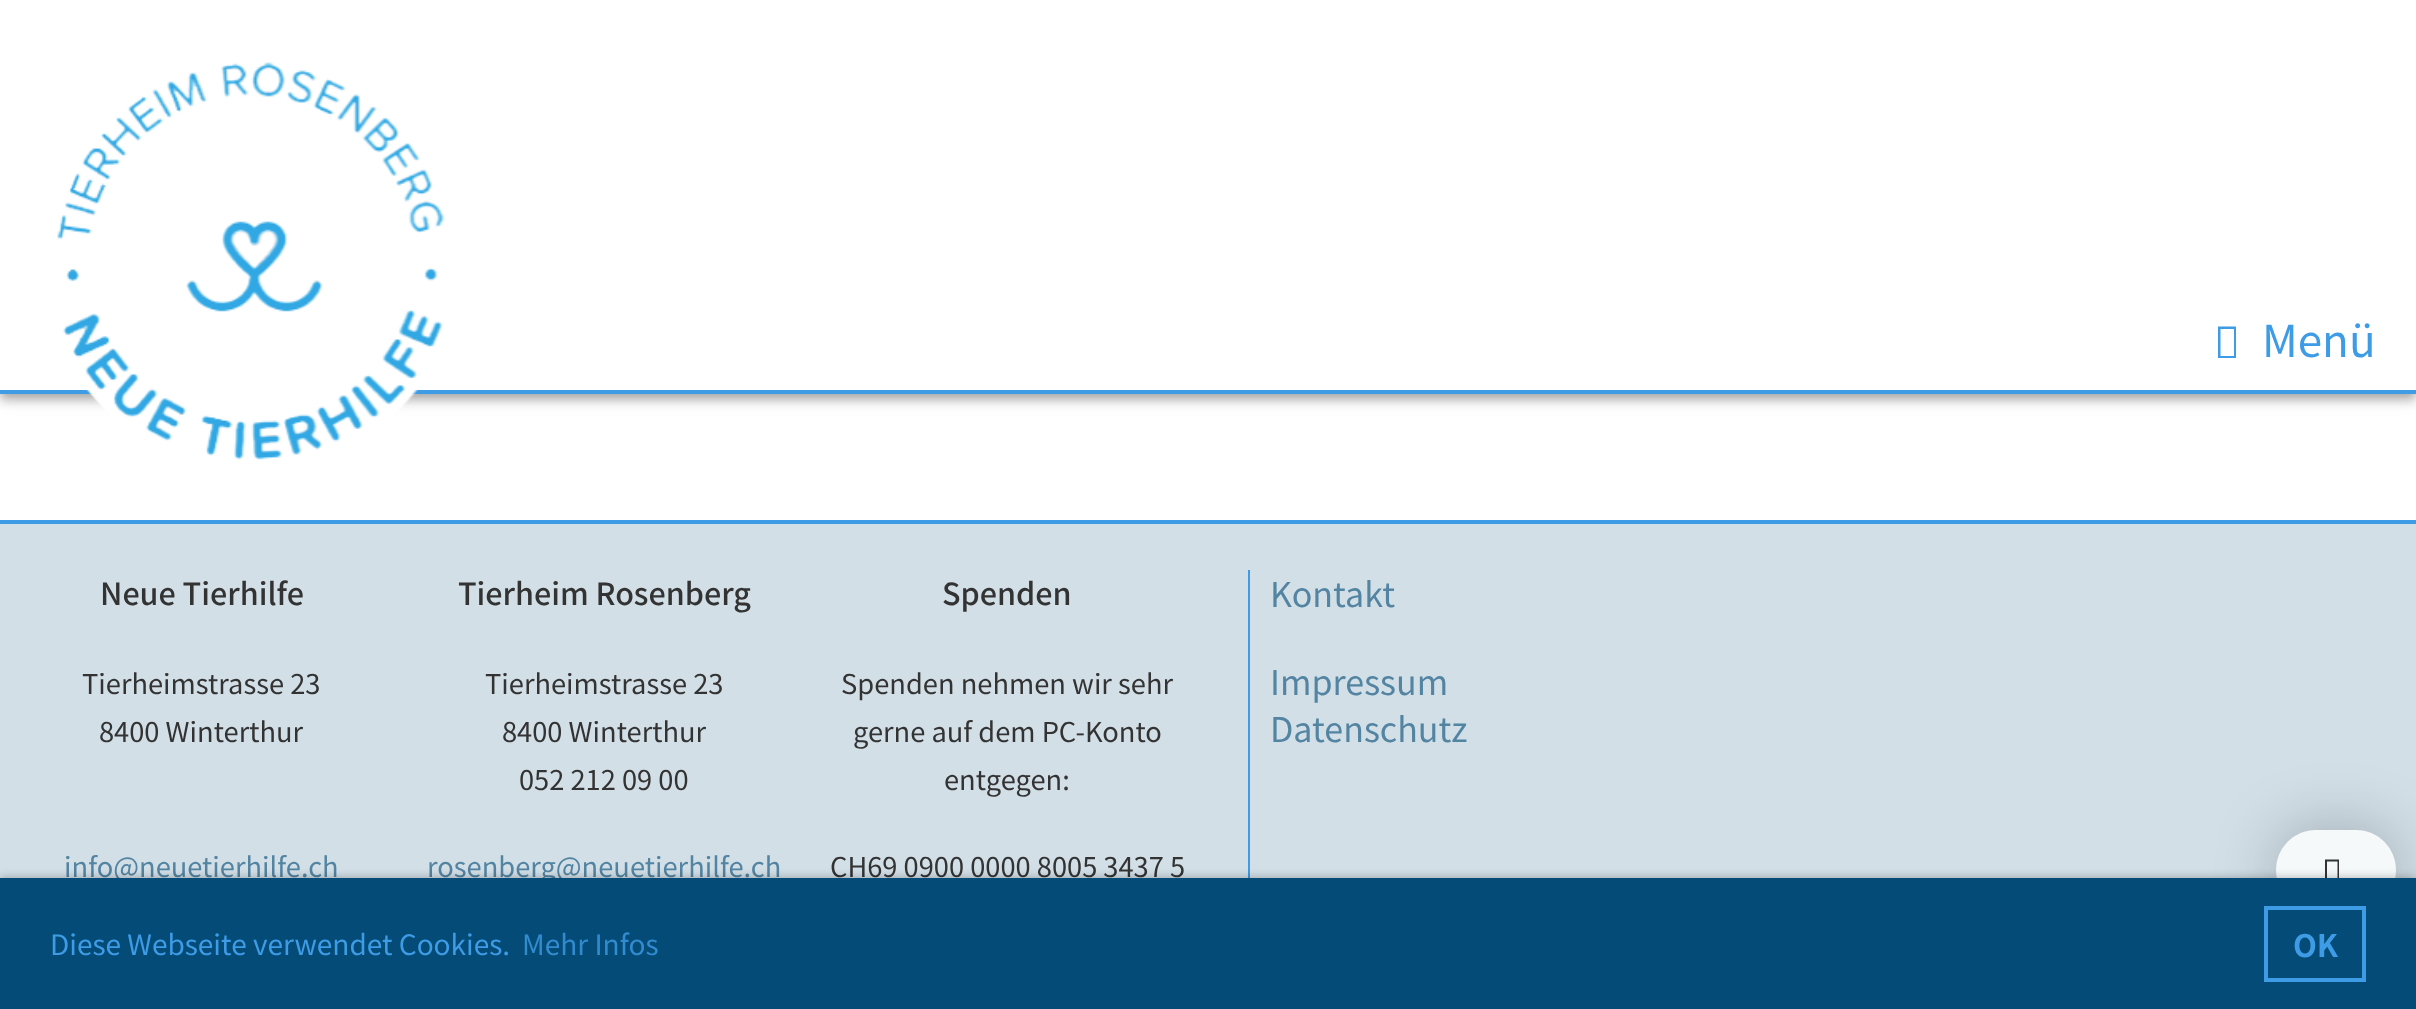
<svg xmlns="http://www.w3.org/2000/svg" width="2416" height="1009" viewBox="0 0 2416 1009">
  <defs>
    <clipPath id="clip1"><path d="M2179 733H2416V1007H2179ZM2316 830H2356C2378 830 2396 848 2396 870C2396 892 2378 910 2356 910H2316C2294 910 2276 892 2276 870C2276 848 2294 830 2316 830Z" clip-rule="evenodd"/></clipPath>
  </defs>
  <rect width="100%" height="100%" fill="rgb(255,255,255)"/>
  <rect x="0" y="2" width="2416" height="394" fill="rgba(0,0,0,0.12)" filter="blur(10px)"/>
  <rect x="0" y="8" width="2416" height="394" fill="rgba(0,0,0,0.14)" filter="blur(5px)"/>
  <rect x="2" y="6" width="2412" height="390" fill="rgba(0,0,0,0.2)" filter="blur(4px)"/>
  <rect x="0" y="0" width="2416" height="390" fill="rgb(255,255,255)"/>
  <rect x="0" y="390" width="2416" height="4" fill="rgb(62,155,229)"/>
  <image x="57" y="62" width="388" height="398" href="pic1.png"/>
  <path d="M2218 358V326.5H2236V358ZM2220.5 356H2234V329H2220.5Z" fill="rgb(62,155,229)"/>
  <text x="2262" y="357" font-family="Noto Sans TC" font-size="44" fill="rgb(62,155,229)">Menü</text>
  <rect x="0" y="520" width="2416" height="4" fill="rgb(62,155,229)"/>
  <rect x="0" y="524" width="2416" height="354" fill="rgb(210,223,231)"/>
  <text x="100" y="605" font-family="Noto Sans TC" font-size="30.5" font-weight="500" fill="rgb(51,51,51)">Neue Tierhilfe</text>
  <g font-family="Noto Sans TC" font-size="27.25" fill="rgb(51,51,51)">
    <text x="82" y="694">Tierheimstrasse 23</text>
    <text x="99" y="742">8400 Winterthur</text>
  </g>
  <text x="64" y="877" font-family="Noto Sans TC" font-size="27.25" fill="rgb(83,132,162)">info@neuetierhilfe.ch</text>
  <text x="458" y="605" font-family="Noto Sans TC" font-size="30.5" font-weight="500" fill="rgb(51,51,51)">Tierheim Rosenberg</text>
  <g font-family="Noto Sans TC" font-size="27.25" fill="rgb(51,51,51)">
    <text x="485" y="694">Tierheimstrasse 23</text>
    <text x="502" y="742">8400 Winterthur</text>
    <text x="519" y="790">052 212 09 00</text>
  </g>
  <text x="427" y="877" font-family="Noto Sans TC" font-size="27.25" fill="rgb(83,132,162)">rosenberg@neuetierhilfe.ch</text>
  <text x="942" y="605" font-family="Noto Sans TC" font-size="30.5" font-weight="500" fill="rgb(51,51,51)">Spenden</text>
  <g font-family="Noto Sans TC" font-size="27.25" fill="rgb(51,51,51)">
    <text x="841" y="694">Spenden nehmen wir sehr</text>
    <text x="853" y="742">gerne auf dem PC-Konto</text>
    <text x="944" y="790">entgegen:</text>
    <text x="830" y="877">CH69 0900 0000 8005 3437 5</text>
  </g>
  <rect x="1248" y="570" width="2" height="308" fill="rgb(62,155,229)"/>
  <g font-family="Noto Sans TC" font-size="34" fill="rgb(83,132,162)">
    <text x="1270" y="607">Kontakt</text>
    <text>
      <tspan x="1270" y="695">Impressum</tspan>
      <tspan x="1270" y="742">Datenschutz</tspan>
    </text>
  </g>
  <g clip-path="url(#clip1)">
    <rect x="2276" y="830" width="120" height="80" rx="40" fill="rgba(0,0,0,0.25)" filter="blur(32px)"/>
  </g>
  <rect x="2276" y="830" width="120" height="80" rx="40" fill="rgba(255,255,255,0.8)"/>
  <path d="M2325 884V859.5H2339V884ZM2327 882.5H2337.5V861.5H2327Z" fill="rgb(51,51,51)"/>
  <rect x="0" y="878" width="2416" height="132" fill="rgba(0,0,0,0.3)" filter="blur(5px)"/>
  <rect x="0" y="878" width="2416" height="131" fill="rgb(4,76,119)"/>
  <text x="50" y="955" font-family="Noto Sans TC" font-size="28" fill="rgb(62,155,229)">Diese Webseite verwendet Cookies.</text>
  <text x="522" y="955" font-family="Noto Sans TC" font-size="28" fill="rgb(50,139,207)">Mehr Infos</text>
  <rect x="2266" y="908" width="98" height="72" fill="none" stroke="rgb(62,155,229)" stroke-width="4"/>
  <text x="2293" y="957" font-family="Noto Sans TC" font-size="31" font-weight="bold" fill="rgb(62,155,229)">OK</text>
</svg>
